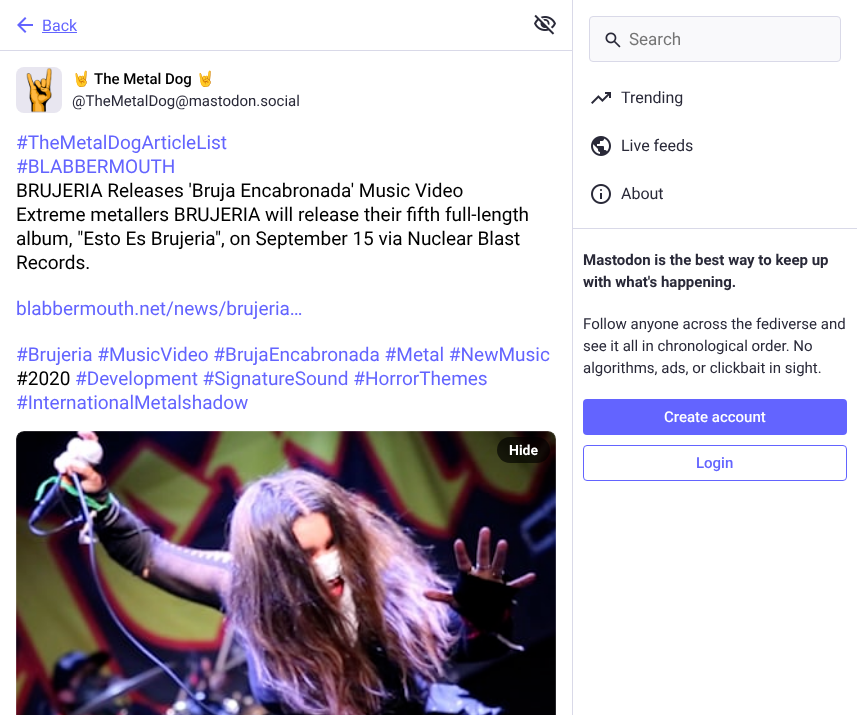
<svg xmlns="http://www.w3.org/2000/svg" width="857" height="715" viewBox="0 0 857 715">
  <rect width="100%" height="100%" fill="rgb(255,255,255)"/>
  <rect x="0" y="50" width="572" height="1" fill="rgb(217,217,232)"/>
  <image x="17" y="17" width="16" height="16" href="pic1.png"/>
  <text x="42" y="31" font-family="Roboto" font-size="16" fill="rgb(99,100,255)">Back</text>
  <rect x="42" y="32" width="35" height="1" fill="rgb(99,100,255)"/>
  <image x="534" y="14" width="22" height="21" href="pic2.png"/>
  <rect x="16" y="67" width="46" height="46" rx="8" fill="rgb(232,230,240)"/>
  <image x="26" y="68" width="26" height="45" href="pic3.png"/>
  <text x="72" y="84" font-family="Noto Color Emoji" font-size="15" fill="rgb(0,0,0)">🤘</text>
  <text x="94" y="84" font-family="Roboto" font-size="15" font-weight="500" fill="rgb(0,0,0)">The Metal Dog</text>
  <text x="196" y="84" font-family="Noto Color Emoji" font-size="15" fill="rgb(0,0,0)">🤘</text>
  <text x="72" y="106" font-family="Roboto" font-size="15" fill="rgb(41,41,56)">@TheMetalDog@mastodon.social</text>
  <g font-family="Roboto" font-size="19" fill="rgb(99,100,255)">
    <text>
      <tspan x="16" y="149">#TheMetalDogArticleList</tspan>
      <tspan x="16" y="173">#BLABBERMOUTH</tspan>
    </text>
  </g>
  <g font-family="Roboto" font-size="19" fill="rgb(0,0,0)">
    <text>
      <tspan x="16" y="197">BRUJERIA Releases 'Bruja Encabronada' Music Video</tspan>
      <tspan x="16" y="221">Extreme metallers BRUJERIA will release their fifth full-length</tspan>
      <tspan x="16" y="245">album, "Esto Es Brujeria", on September 15 via Nuclear Blast</tspan>
      <tspan x="16" y="269">Records.</tspan>
    </text>
  </g>
  <g font-family="Roboto" font-size="19" fill="rgb(99,100,255)">
    <text x="16" y="315">blabbermouth.net/news/brujeria…</text>
    <text x="16" y="361">#Brujeria #MusicVideo #BrujaEncabronada #Metal #NewMusic</text>
  </g>
  <text x="16" y="385" font-family="Roboto" font-size="19" fill="rgb(0,0,0)">#2020</text>
  <g font-family="Roboto" font-size="19" fill="rgb(99,100,255)">
    <text x="75" y="385">#Development #SignatureSound #HorrorThemes</text>
    <text x="16" y="409">#InternationalMetalshadow</text>
  </g>
  <image x="16" y="431" width="540" height="284" href="pic4.png"/>
  <rect x="16.5" y="431.5" width="539" height="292" rx="7.5" fill="none" stroke="rgba(252,248,255,0.15)"/>
  <rect x="497" y="437" width="53" height="26" rx="13" fill="rgba(0,0,0,0.65)"/>
  <text x="509" y="455" font-family="Roboto" font-size="14" font-weight="bold" fill="rgb(255,255,255)">Hide</text>
  <rect x="572" y="0" width="1" height="715" fill="rgb(217,217,232)"/>
  <rect x="589.5" y="16.5" width="251" height="45" rx="3.5" fill="rgb(249,249,251)" stroke="rgb(217,217,232)"/>
  <image x="605" y="32" width="16" height="16" href="pic5.png"/>
  <text x="629" y="45" font-family="Roboto" font-size="17" fill="rgb(117,117,117)">Search</text>
  <image x="591" y="92" width="20" height="12" href="pic6.png"/>
  <text x="621" y="103" font-family="Roboto" font-size="16" fill="rgb(41,41,56)">Trending</text>
  <image x="591" y="136" width="20" height="20" href="pic7.png"/>
  <text x="621" y="151" font-family="Roboto" font-size="16" fill="rgb(41,41,56)">Live feeds</text>
  <image x="591" y="184" width="20" height="20" href="pic8.png"/>
  <text x="621" y="199" font-family="Roboto" font-size="16" fill="rgb(41,41,56)">About</text>
  <rect x="573" y="228" width="284" height="1" fill="rgb(217,217,232)"/>
  <g font-family="Roboto" font-size="15" font-weight="bold" fill="rgb(41,41,56)">
    <text>
      <tspan x="583" y="265">Mastodon is the best way to keep up</tspan>
      <tspan x="583" y="287">with what's happening.</tspan>
    </text>
  </g>
  <g font-family="Roboto" font-size="15" fill="rgb(41,41,56)">
    <text>
      <tspan x="583" y="329">Follow anyone across the fediverse and</tspan>
      <tspan x="583" y="351">see it all in chronological order. No</tspan>
      <tspan x="583" y="373">algorithms, ads, or clickbait in sight.</tspan>
    </text>
  </g>
  <rect x="583" y="399" width="264" height="36" rx="4" fill="rgb(99,100,255)"/>
  <text x="664" y="422" font-family="Roboto" font-size="15" font-weight="500" fill="rgb(255,255,255)">Create account</text>
  <rect x="583.5" y="445.5" width="263" height="35" rx="3.5" fill="none" stroke="rgb(99,100,255)"/>
  <text x="696" y="468" font-family="Roboto" font-size="15" font-weight="500" fill="rgb(99,100,255)">Login</text>
</svg>
